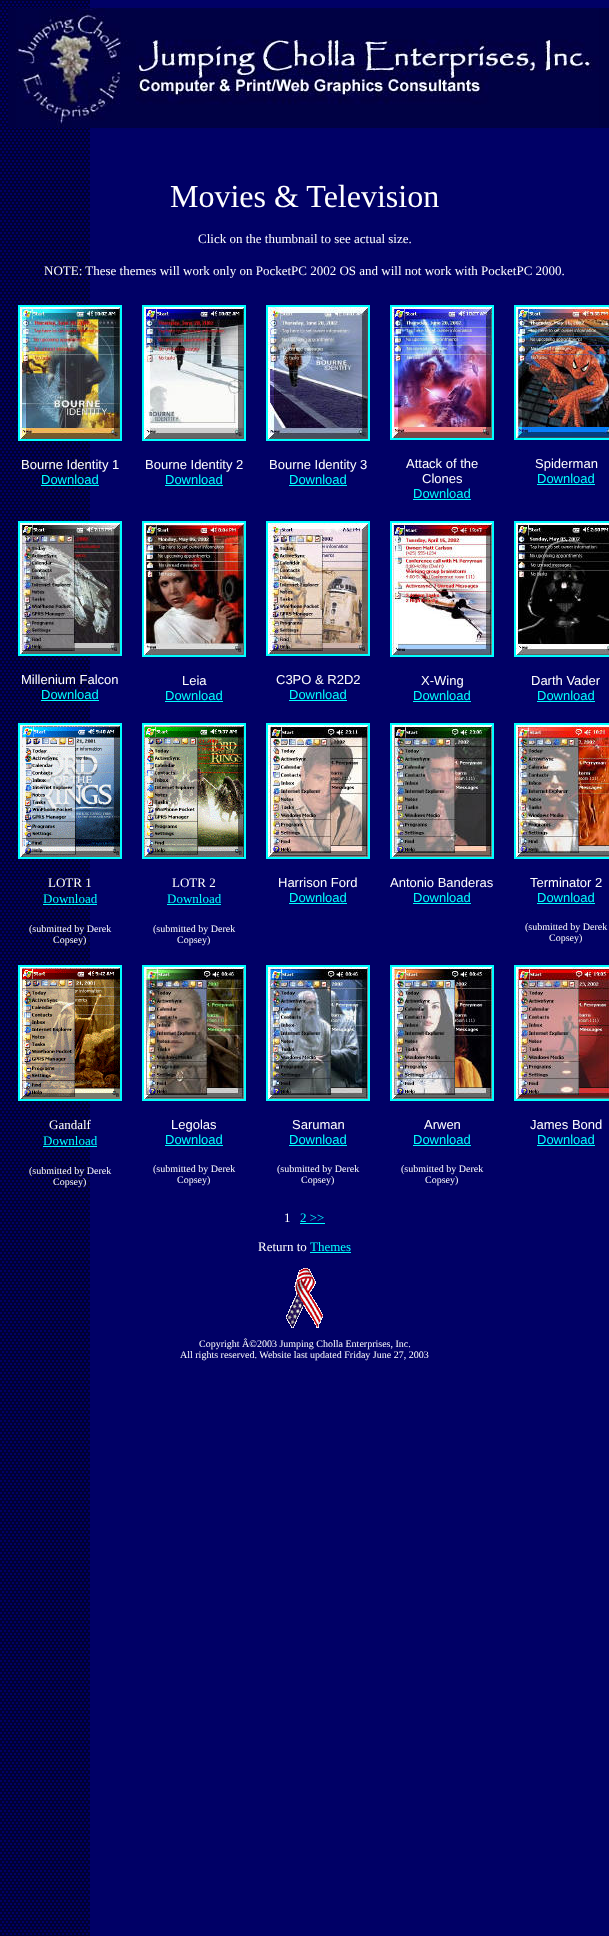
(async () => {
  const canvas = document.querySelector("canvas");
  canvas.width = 609;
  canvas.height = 1936;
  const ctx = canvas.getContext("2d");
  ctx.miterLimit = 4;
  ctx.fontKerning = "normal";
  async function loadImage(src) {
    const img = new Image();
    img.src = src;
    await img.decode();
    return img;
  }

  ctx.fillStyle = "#000066";
  ctx.fillRect(0, 0, 609, 1936);
  ctx.drawImage(await loadImage("img/1.png"), 0, 0, 90, 1936);
  ctx.fillStyle = "#000042";
  ctx.fillRect(8, 8, 601, 120);
  ctx.drawImage(await loadImage("img/2.png"), 16, 8, 583, 120);
  ctx.strokeStyle = "#00ffff";
  ctx.lineWidth = 2;
  ctx.strokeRect(19, 306, 102, 134);
  ctx.drawImage(await loadImage("img/3.png"), 20, 307, 100, 132);
  ctx.fillStyle = "#00ffff";
  ctx.fillRect(41, 485, 58, 1);
  ctx.strokeRect(143, 306, 102, 134);
  ctx.drawImage(await loadImage("img/4.png"), 144, 307, 100, 132);
  ctx.fillRect(165, 485, 58, 1);
  ctx.strokeRect(267, 306, 102, 134);
  ctx.drawImage(await loadImage("img/5.png"), 268, 307, 100, 132);
  ctx.fillRect(289, 485, 58, 1);
  ctx.strokeRect(391, 306, 102, 133);
  ctx.drawImage(await loadImage("img/6.png"), 392, 307, 100, 131);
  ctx.fillRect(413, 499, 58, 1);
  ctx.strokeRect(515, 306, 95, 133);
  ctx.drawImage(await loadImage("img/7.png"), 516, 307, 93, 131);
  ctx.fillRect(537, 484, 58, 1);
  ctx.strokeRect(19, 522, 102, 133);
  ctx.drawImage(await loadImage("img/8.png"), 20, 523, 100, 131);
  ctx.fillRect(41, 700, 58, 1);
  ctx.strokeRect(143, 522, 102, 134);
  ctx.drawImage(await loadImage("img/9.png"), 144, 523, 100, 132);
  ctx.fillRect(165, 701, 58, 1);
  ctx.strokeRect(267, 522, 102, 133);
  ctx.drawImage(await loadImage("img/10.png"), 268, 523, 100, 131);
  ctx.fillRect(289, 700, 58, 1);
  ctx.strokeRect(391, 522, 102, 134);
  ctx.drawImage(await loadImage("img/11.png"), 392, 523, 100, 132);
  ctx.fillRect(413, 701, 58, 1);
  ctx.strokeRect(515, 522, 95, 134);
  ctx.drawImage(await loadImage("img/12.png"), 516, 523, 93, 132);
  ctx.fillRect(537, 701, 58, 1);
  ctx.strokeRect(19, 724, 102, 134);
  ctx.drawImage(await loadImage("img/13.png"), 20, 725, 100, 132);
  ctx.fillRect(43, 904, 54, 1);
  ctx.strokeRect(143, 724, 102, 134);
  ctx.drawImage(await loadImage("img/14.png"), 144, 725, 100, 132);
  ctx.fillRect(167, 904, 54, 1);
  ctx.strokeRect(267, 724, 102, 134);
  ctx.drawImage(await loadImage("img/15.png"), 268, 725, 100, 132);
  ctx.fillRect(289, 903, 58, 1);
  ctx.strokeRect(391, 724, 102, 134);
  ctx.drawImage(await loadImage("img/16.png"), 392, 725, 100, 132);
  ctx.fillRect(413, 903, 58, 1);
  ctx.strokeRect(515, 724, 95, 134);
  ctx.drawImage(await loadImage("img/17.png"), 516, 725, 93, 132);
  ctx.fillRect(537, 903, 58, 1);
  ctx.strokeRect(19, 966, 102, 134);
  ctx.drawImage(await loadImage("img/18.png"), 20, 967, 100, 132);
  ctx.fillRect(43, 1146, 54, 1);
  ctx.strokeRect(143, 966, 102, 134);
  ctx.drawImage(await loadImage("img/19.png"), 144, 967, 100, 132);
  ctx.fillRect(165, 1145, 58, 1);
  ctx.strokeRect(267, 966, 102, 134);
  ctx.drawImage(await loadImage("img/20.png"), 268, 967, 100, 132);
  ctx.fillRect(289, 1145, 58, 1);
  ctx.strokeRect(391, 966, 102, 134);
  ctx.drawImage(await loadImage("img/21.png"), 392, 967, 100, 132);
  ctx.fillRect(413, 1145, 58, 1);
  ctx.strokeRect(515, 966, 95, 134);
  ctx.drawImage(await loadImage("img/22.png"), 516, 967, 93, 132);
  for (const [x, y, w, h, color] of [
    [537, 1145, 58, 1, "#00ffff"],
    [300, 1223, 25, 1, "#00ffff"],
    [310, 1252, 41, 1, "#00ffff"],
  ]) {
    ctx.fillStyle = color;
    ctx.fillRect(x, y, w, h);
  }
  ctx.drawImage(await loadImage("img/23.png"), 286, 1268, 37, 60);
  ctx.font = "32px Liberation Serif";
  ctx.fillStyle = "#ffffff";
  ctx.fillText("Movies & Television", 170, 207);
  ctx.font = "13px Liberation Serif";
  ctx.fillText("Click on the thumbnail to see actual size.", 198, 243);
  ctx.fillText("NOTE: These themes will work only on PocketPC 2002 OS and will not work with PocketPC 2000.", 44, 275);
  ctx.font = "13px Liberation Sans";
  ctx.fillText("Bourne Identity 1", 21, 469);
  ctx.fillStyle = "#00ffff";
  ctx.fillText("Download", 41, 484);
  ctx.fillStyle = "#ffffff";
  ctx.fillText("Bourne Identity 2", 145, 469);
  ctx.fillStyle = "#00ffff";
  ctx.fillText("Download", 165, 484);
  ctx.fillStyle = "#ffffff";
  ctx.fillText("Bourne Identity 3", 269, 469);
  ctx.fillStyle = "#00ffff";
  ctx.fillText("Download", 289, 484);
  ctx.fillStyle = "#ffffff";
  ctx.fillText("Attack of the", 406, 468);
  ctx.fillText("Clones", 422, 483);
  ctx.fillStyle = "#00ffff";
  ctx.fillText("Download", 413, 498);
  ctx.fillStyle = "#ffffff";
  ctx.fillText("Spiderman", 535, 468);
  ctx.fillStyle = "#00ffff";
  ctx.fillText("Download", 537, 483);
  ctx.fillStyle = "#ffffff";
  ctx.fillText("Millenium Falcon", 21, 684);
  ctx.fillStyle = "#00ffff";
  ctx.fillText("Download", 41, 699);
  ctx.fillStyle = "#ffffff";
  ctx.fillText("Leia", 182, 685);
  ctx.fillStyle = "#00ffff";
  ctx.fillText("Download", 165, 700);
  ctx.fillStyle = "#ffffff";
  ctx.fillText("C3PO & R2D2", 276, 684);
  ctx.fillStyle = "#00ffff";
  ctx.fillText("Download", 289, 699);
  ctx.fillStyle = "#ffffff";
  ctx.fillText("X-Wing", 421, 685);
  ctx.fillStyle = "#00ffff";
  ctx.fillText("Download", 413, 700);
  ctx.fillStyle = "#ffffff";
  ctx.fillText("Darth Vader", 531, 685);
  ctx.fillStyle = "#00ffff";
  ctx.fillText("Download", 537, 700);
  ctx.font = "13px Liberation Serif";
  ctx.fillStyle = "#ffffff";
  ctx.fillText("LOTR 1", 48, 887);
  ctx.fillStyle = "#00ffff";
  ctx.fillText("Download", 43, 903);
  ctx.font = "10px Liberation Serif";
  ctx.fillStyle = "#ffffff";
  ctx.fillText("(submitted by Derek", 29, 932);
  ctx.fillText("Copsey)", 53, 943);
  ctx.font = "13px Liberation Serif";
  ctx.fillText("LOTR 2", 172, 887);
  ctx.fillStyle = "#00ffff";
  ctx.fillText("Download", 167, 903);
  ctx.font = "10px Liberation Serif";
  ctx.fillStyle = "#ffffff";
  ctx.fillText("(submitted by Derek", 153, 932);
  ctx.fillText("Copsey)", 177, 943);
  ctx.font = "13px Liberation Sans";
  ctx.fillText("Harrison Ford", 278, 887);
  ctx.fillStyle = "#00ffff";
  ctx.fillText("Download", 289, 902);
  ctx.fillStyle = "#ffffff";
  ctx.fillText("Antonio Banderas", 390, 887);
  ctx.fillStyle = "#00ffff";
  ctx.fillText("Download", 413, 902);
  ctx.fillStyle = "#ffffff";
  ctx.fillText("Terminator 2", 530, 887);
  ctx.fillStyle = "#00ffff";
  ctx.fillText("Download", 537, 902);
  ctx.font = "10px Liberation Serif";
  ctx.fillStyle = "#ffffff";
  ctx.fillText("(submitted by Derek", 525, 930);
  ctx.fillText("Copsey)", 549, 941);
  ctx.font = "13px Liberation Serif";
  ctx.fillText("Gandalf", 49, 1129);
  ctx.fillStyle = "#00ffff";
  ctx.fillText("Download", 43, 1145);
  ctx.font = "10px Liberation Serif";
  ctx.fillStyle = "#ffffff";
  ctx.fillText("(submitted by Derek", 29, 1174);
  ctx.fillText("Copsey)", 53, 1185);
  ctx.font = "13px Liberation Sans";
  ctx.fillText("Legolas", 171, 1129);
  ctx.fillStyle = "#00ffff";
  ctx.fillText("Download", 165, 1144);
  ctx.font = "10px Liberation Serif";
  ctx.fillStyle = "#ffffff";
  ctx.fillText("(submitted by Derek", 153, 1172);
  ctx.fillText("Copsey)", 177, 1183);
  ctx.font = "13px Liberation Sans";
  ctx.fillText("Saruman", 292, 1129);
  ctx.fillStyle = "#00ffff";
  ctx.fillText("Download", 289, 1144);
  ctx.font = "10px Liberation Serif";
  ctx.fillStyle = "#ffffff";
  ctx.fillText("(submitted by Derek", 277, 1172);
  ctx.fillText("Copsey)", 301, 1183);
  ctx.font = "13px Liberation Sans";
  ctx.fillText("Arwen", 424, 1129);
  ctx.fillStyle = "#00ffff";
  ctx.fillText("Download", 413, 1144);
  ctx.font = "10px Liberation Serif";
  ctx.fillStyle = "#ffffff";
  ctx.fillText("(submitted by Derek", 401, 1172);
  ctx.fillText("Copsey)", 425, 1183);
  ctx.font = "13px Liberation Sans";
  ctx.fillText("James Bond", 530, 1129);
  ctx.fillStyle = "#00ffff";
  ctx.fillText("Download", 537, 1144);
  ctx.font = "13px Liberation Serif";
  ctx.fillStyle = "#ffffff";
  ctx.fillText("1", 284, 1222);
  ctx.fillStyle = "#00ffff";
  ctx.fillText("2 >>", 300, 1222);
  ctx.fillStyle = "#ffffff";
  ctx.fillText("Return to", 258, 1251);
  ctx.fillStyle = "#00ffff";
  ctx.fillText("Themes", 310, 1251);
  ctx.font = "10px Liberation Serif";
  ctx.fillStyle = "#ffffff";
  ctx.fillText("Copyright Â©2003 Jumping Cholla Enterprises, Inc.", 199, 1347);
  ctx.fillText("All rights reserved. Website last updated Friday June 27, 2003", 180, 1358);
})();
